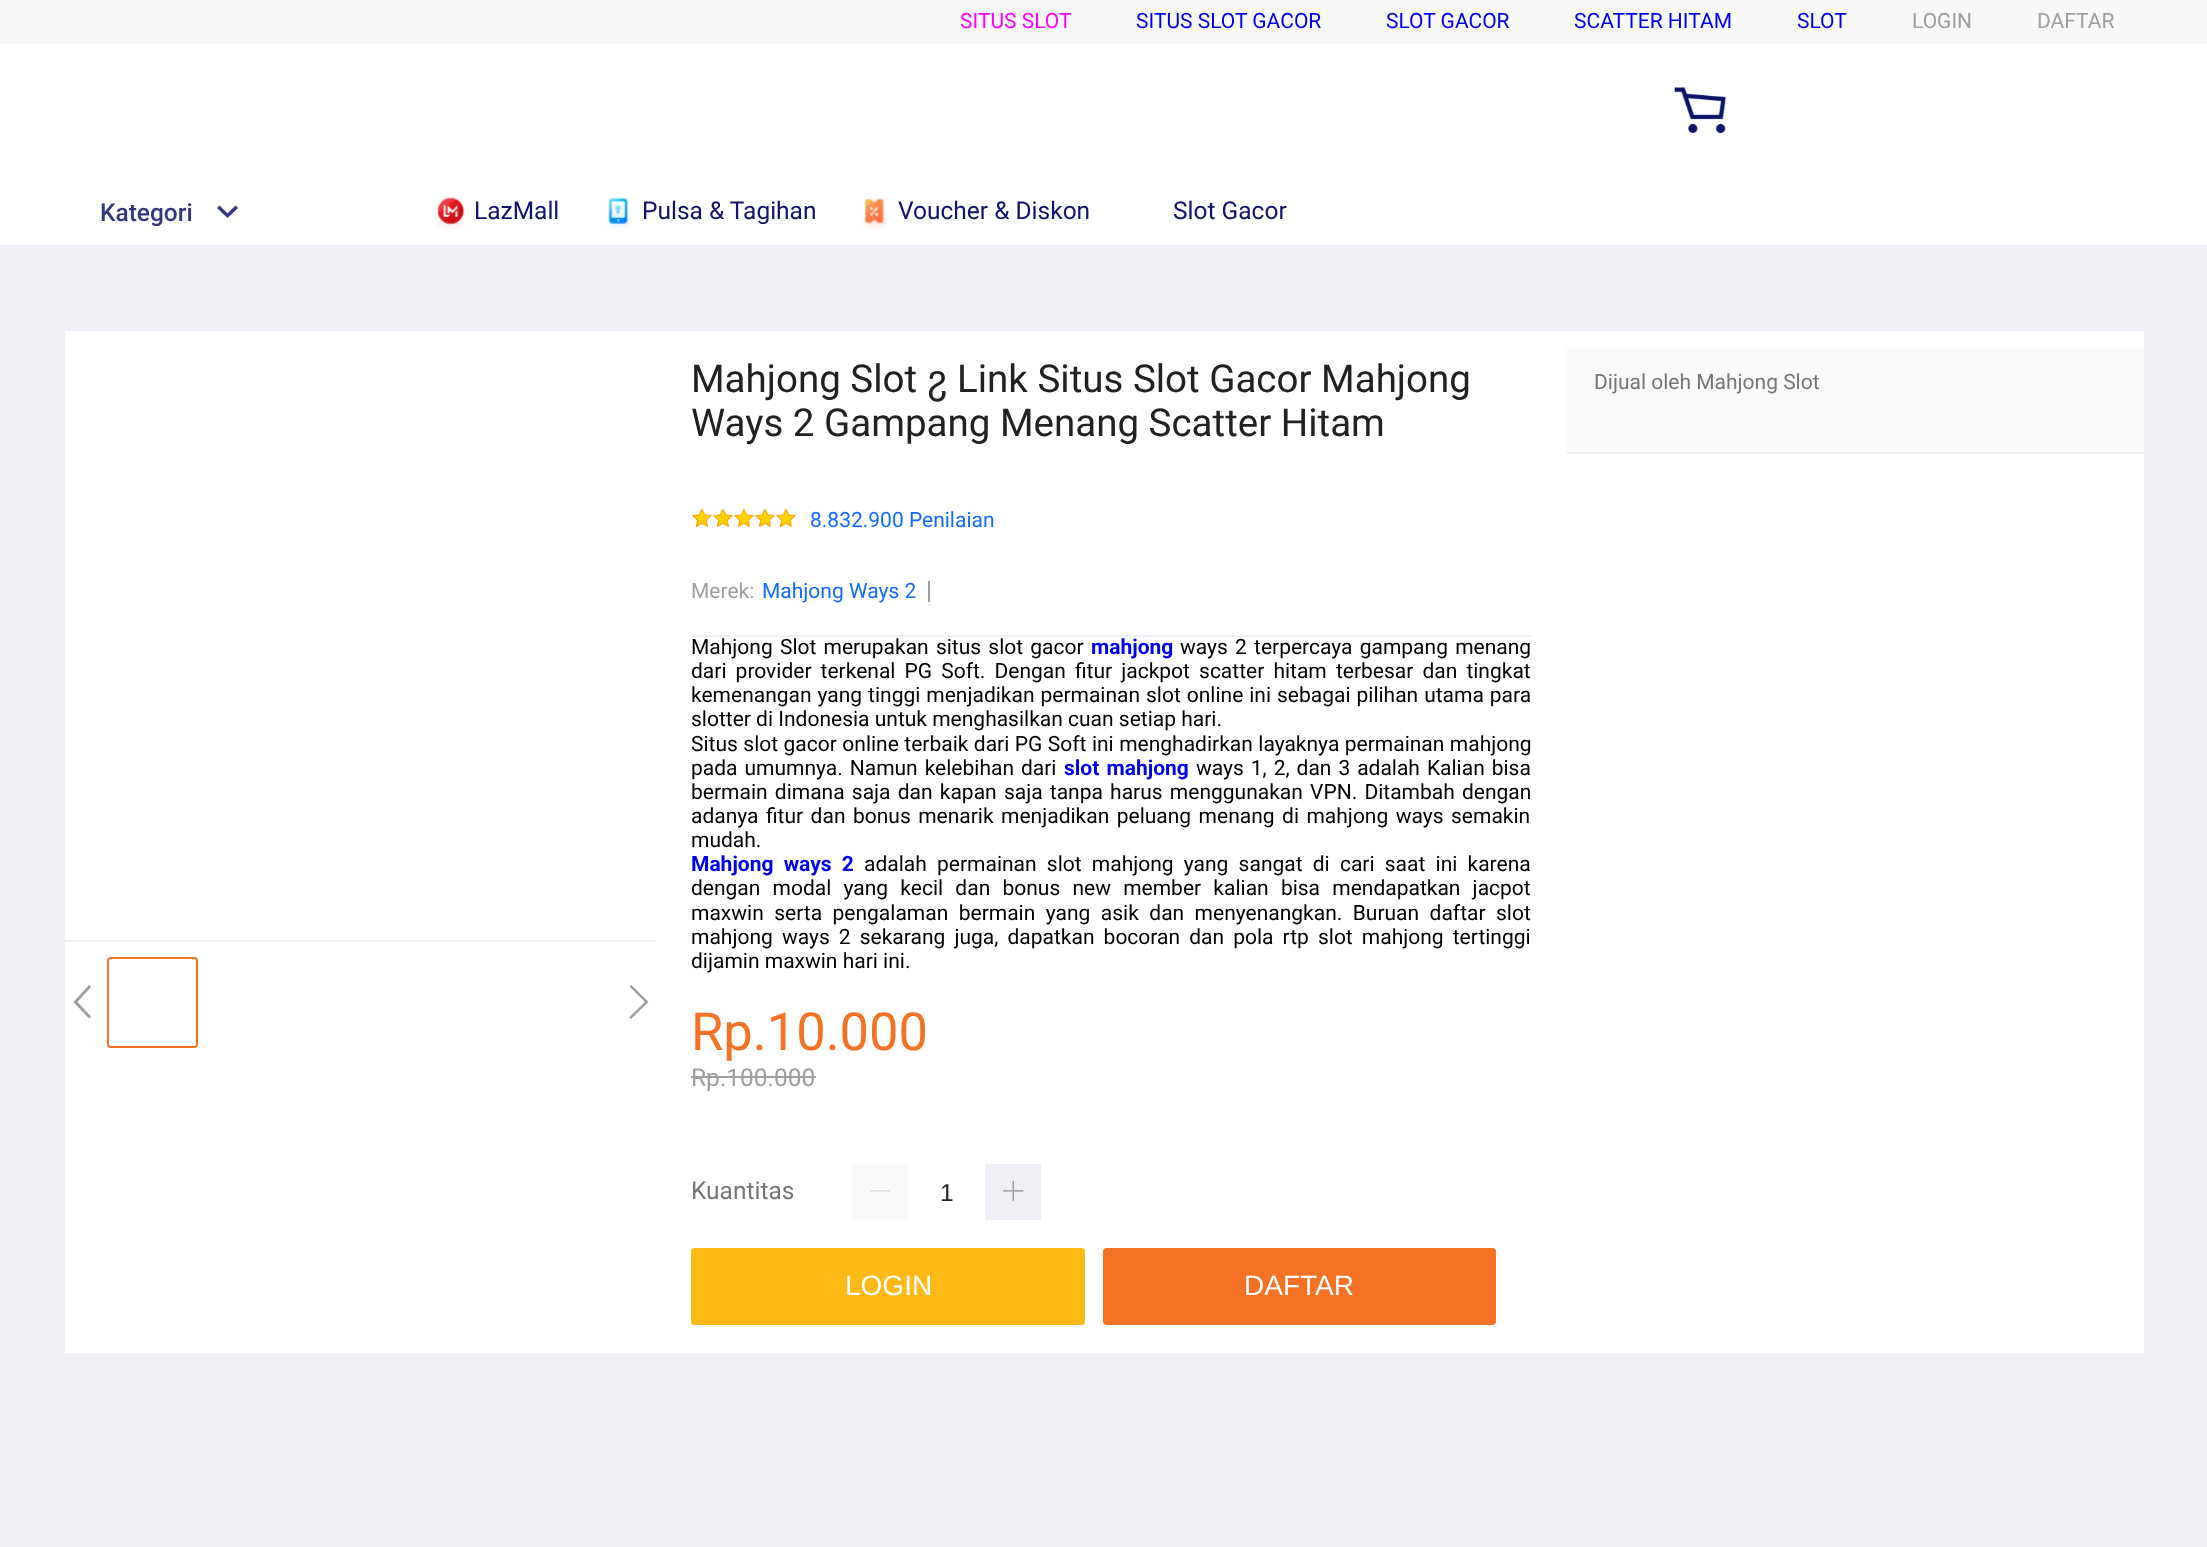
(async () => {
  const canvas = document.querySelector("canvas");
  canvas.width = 2207;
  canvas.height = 1547;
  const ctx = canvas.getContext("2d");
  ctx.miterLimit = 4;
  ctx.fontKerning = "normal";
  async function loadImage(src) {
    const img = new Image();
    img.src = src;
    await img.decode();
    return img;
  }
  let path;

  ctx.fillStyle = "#eff0f5";
  ctx.fillRect(0, 0, 2207, 1547);
  ctx.fillStyle = "#ffffff";
  ctx.fillRect(0, 44, 2207, 201);
  ctx.fillStyle = "#f8f8f8";
  ctx.fillRect(0, 0, 2207, 44);
  ctx.drawImage(await loadImage("img/1.png"), 1674, 87, 52, 46);
  ctx.fillStyle = "#333683";
  path = new Path2D("M235.5 205.5L238 208L227.5 218L217 208L219.5 205.5L227.5 213.5Z");
  ctx.fill(path);
  ctx.drawImage(await loadImage("img/2.png"), 435, 197, 30, 32);
  ctx.drawImage(await loadImage("img/3.png"), 606, 197, 26, 32);
  ctx.drawImage(await loadImage("img/4.png"), 861, 198, 27, 31);
  ctx.fillStyle = "#ffffff";
  ctx.fillRect(65, 331, 2079, 1022);
  ctx.fillStyle = "#eff0f5";
  ctx.fillRect(65, 940, 591, 2);
  ctx.fillStyle = "#9e9e9e";
  path = new Path2D("M91 1016.5L77.5 1002L91 987L89 985L73.5 1002L89 1018.5Z");
  ctx.fill(path);
  ctx.beginPath();
  ctx.roundRect(108, 958, 89, 89, 3);
  ctx.strokeStyle = "#f57224";
  ctx.lineWidth = 2;
  ctx.stroke();
  path = new Path2D("M631 1019L629 1017.5L645 1002L629.5 986.5L631.5 985L648.5 1002Z");
  ctx.fill(path);
  ctx.drawImage(await loadImage("img/5.png"), 692, 508, 21, 19);
  ctx.drawImage(await loadImage("img/6.png"), 713, 508, 21, 19);
  ctx.drawImage(await loadImage("img/6.png"), 734, 508, 21, 19);
  ctx.drawImage(await loadImage("img/7.png"), 755, 508, 21, 19);
  ctx.drawImage(await loadImage("img/5.png"), 776, 508, 21, 19);
  for (const [x, y, w, h, color] of [
    [691, 635, 840, 2, "#eff0f5"],
    [928, 581, 2, 21, "#9e9e9e"],
    [691, 1076, 125, 2, "#9e9e9e"],
    [852, 1164, 56, 56, "#fafafa"],
  ]) {
    ctx.fillStyle = color;
    ctx.fillRect(x, y, w, h);
  }
  ctx.drawImage(await loadImage("img/8.png"), 870, 1190, 21, 2);
  ctx.fillStyle = "#eff0f5";
  ctx.fillRect(985, 1164, 56, 56);
  ctx.drawImage(await loadImage("img/9.png"), 1003, 1180, 21, 21);
  ctx.fillStyle = "#ffb916";
  ctx.beginPath();
  ctx.roundRect(691, 1248, 394, 77, 4);
  ctx.fill();
  ctx.fillStyle = "#f57224";
  ctx.beginPath();
  ctx.roundRect(1103, 1248, 393, 77, 4);
  ctx.fill();
  ctx.fillStyle = "#fafafa";
  ctx.fillRect(1566, 348, 578, 104);
  ctx.fillStyle = "#eff0f5";
  ctx.fillRect(1566, 452, 578, 2);
  ctx.font = "21px Roboto";
  ctx.fillStyle = "#ff00ff";
  ctx.fillText("SITUS SLOT", 960, 28);
  ctx.fillStyle = "#0000ee";
  for (const [text, x, y] of [
    ["SITUS SLOT GACOR", 1136, 28],
    ["SLOT GACOR", 1386, 28],
    ["SCATTER HITAM", 1574, 28],
    ["SLOT", 1797, 28],
  ]) {
    ctx.fillText(text, x, y);
  }
  ctx.fillStyle = "#9e9e9e";
  ctx.fillText("LOGIN", 1912, 28);
  ctx.fillText("DAFTAR", 2037, 28);
  ctx.font = "500 24.5px Roboto";
  ctx.fillStyle = "#333683";
  ctx.fillText("Kategori", 100, 221);
  ctx.font = "24.5px Roboto";
  ctx.fillStyle = "#0f136d";
  for (const [text, x, y] of [
    ["LazMall", 474, 219],
    ["Pulsa & Tagihan", 642, 219],
    ["Voucher & Diskon", 898, 219],
    ["Slot Gacor", 1173, 219],
  ]) {
    ctx.fillText(text, x, y);
  }
  ctx.font = "38.5px Roboto";
  ctx.fillStyle = "#212121";
  ctx.fillText("Mahjong Slot", 691, 392);
  ctx.font = "38.5px Noto Sans Georgian";
  ctx.fillText("ⴧ", 927, 392);
  ctx.font = "38.5px Roboto";
  ctx.fillText("Link Situs Slot Gacor Mahjong", 957, 392);
  ctx.fillText("Ways 2 Gampang Menang Scatter Hitam", 691, 436);
  ctx.font = "21px Roboto";
  ctx.fillStyle = "#136cff";
  ctx.fillText("8.832.900 Penilaian", 810, 527);
  ctx.fillStyle = "#9e9e9e";
  ctx.fillText("Merek:", 691, 598);
  ctx.fillStyle = "#136cff";
  ctx.fillText("Mahjong Ways 2", 762, 598);
  ctx.wordSpacing = "2px";
  ctx.fillStyle = "#000000";
  ctx.fillText("Mahjong Slot merupakan situs slot gacor", 691, 654);
  ctx.wordSpacing = "0px";
  ctx.font = "bold 21px Roboto";
  ctx.fillStyle = "#0000ee";
  ctx.fillText("mahjong", 1091, 654);
  ctx.wordSpacing = "2px";
  ctx.font = "21px Roboto";
  ctx.fillStyle = "#000000";
  ctx.fillText("ways 2 terpercaya gampang menang", 1180, 654);
  ctx.wordSpacing = "3.9px";
  ctx.fillText("dari provider terkenal PG Soft. Dengan fitur jackpot scatter hitam terbesar dan tingkat", 691, 678);
  ctx.wordSpacing = "0.75px";
  ctx.fillText("kemenangan yang tinggi menjadikan permainan slot online ini sebagai pilihan utama para", 691, 702);
  ctx.wordSpacing = "0px";
  ctx.fillText("slotter di Indonesia untuk menghasilkan cuan setiap hari.", 691, 726);
  ctx.wordSpacing = "0.25px";
  ctx.fillText("Situs slot gacor online terbaik dari PG Soft ini menghadirkan layaknya permainan mahjong", 691, 751);
  ctx.wordSpacing = "1.75px";
  ctx.fillText("pada umumnya. Namun kelebihan dari", 691, 775);
  ctx.wordSpacing = "2px";
  ctx.font = "bold 21px Roboto";
  ctx.fillStyle = "#0000ee";
  ctx.fillText("slot mahjong", 1064, 775);
  ctx.wordSpacing = "1.75px";
  ctx.font = "21px Roboto";
  ctx.fillStyle = "#000000";
  ctx.fillText("ways 1, 2, dan 3 adalah Kalian bisa", 1196, 775);
  ctx.wordSpacing = "2px";
  ctx.fillText("bermain dimana saja dan kapan saja tanpa harus menggunakan VPN. Ditambah dengan", 691, 799);
  ctx.wordSpacing = "2.25px";
  ctx.fillText("adanya fitur dan bonus menarik menjadikan peluang menang di mahjong ways semakin", 691, 823);
  ctx.wordSpacing = "0px";
  ctx.fillText("mudah.", 691, 847);
  ctx.wordSpacing = "5px";
  ctx.font = "bold 21px Roboto";
  ctx.fillStyle = "#0000ee";
  ctx.fillText("Mahjong ways 2", 691, 871);
  ctx.font = "21px Roboto";
  ctx.fillStyle = "#000000";
  ctx.fillText("adalah permainan slot mahjong yang sangat di cari saat ini karena", 864, 871);
  ctx.wordSpacing = "7px";
  ctx.fillText("dengan modal yang kecil dan bonus new member kalian bisa mendapatkan jacpot", 691, 895);
  ctx.wordSpacing = "5.25px";
  ctx.fillText("maxwin serta pengalaman bermain yang asik dan menyenangkan. Buruan daftar slot", 691, 920);
  ctx.wordSpacing = "3.9px";
  ctx.fillText("mahjong ways 2 sekarang juga, dapatkan bocoran dan pola rtp slot mahjong tertinggi", 691, 944);
  ctx.wordSpacing = "0px";
  ctx.fillText("dijamin maxwin hari ini.", 691, 968);
  ctx.font = "52.5px Roboto";
  ctx.fillStyle = "#f57224";
  ctx.fillText("Rp.10.000", 691, 1050);
  ctx.font = "24.5px Roboto";
  ctx.fillStyle = "#9e9e9e";
  ctx.fillText("Rp.100.000", 691, 1086);
  ctx.fillStyle = "#757575";
  ctx.fillText("Kuantitas", 691, 1199);
  ctx.font = "24.5px Liberation Sans";
  ctx.fillStyle = "#212121";
  ctx.fillText("1", 940, 1201);
  ctx.font = "28px Liberation Sans";
  ctx.fillStyle = "#ffffff";
  ctx.fillText("LOGIN", 845, 1295);
  ctx.fillText("DAFTAR", 1244, 1295);
  ctx.font = "21px Roboto";
  ctx.fillStyle = "#757575";
  ctx.fillText("Dijual oleh Mahjong Slot", 1594, 389);
})();
